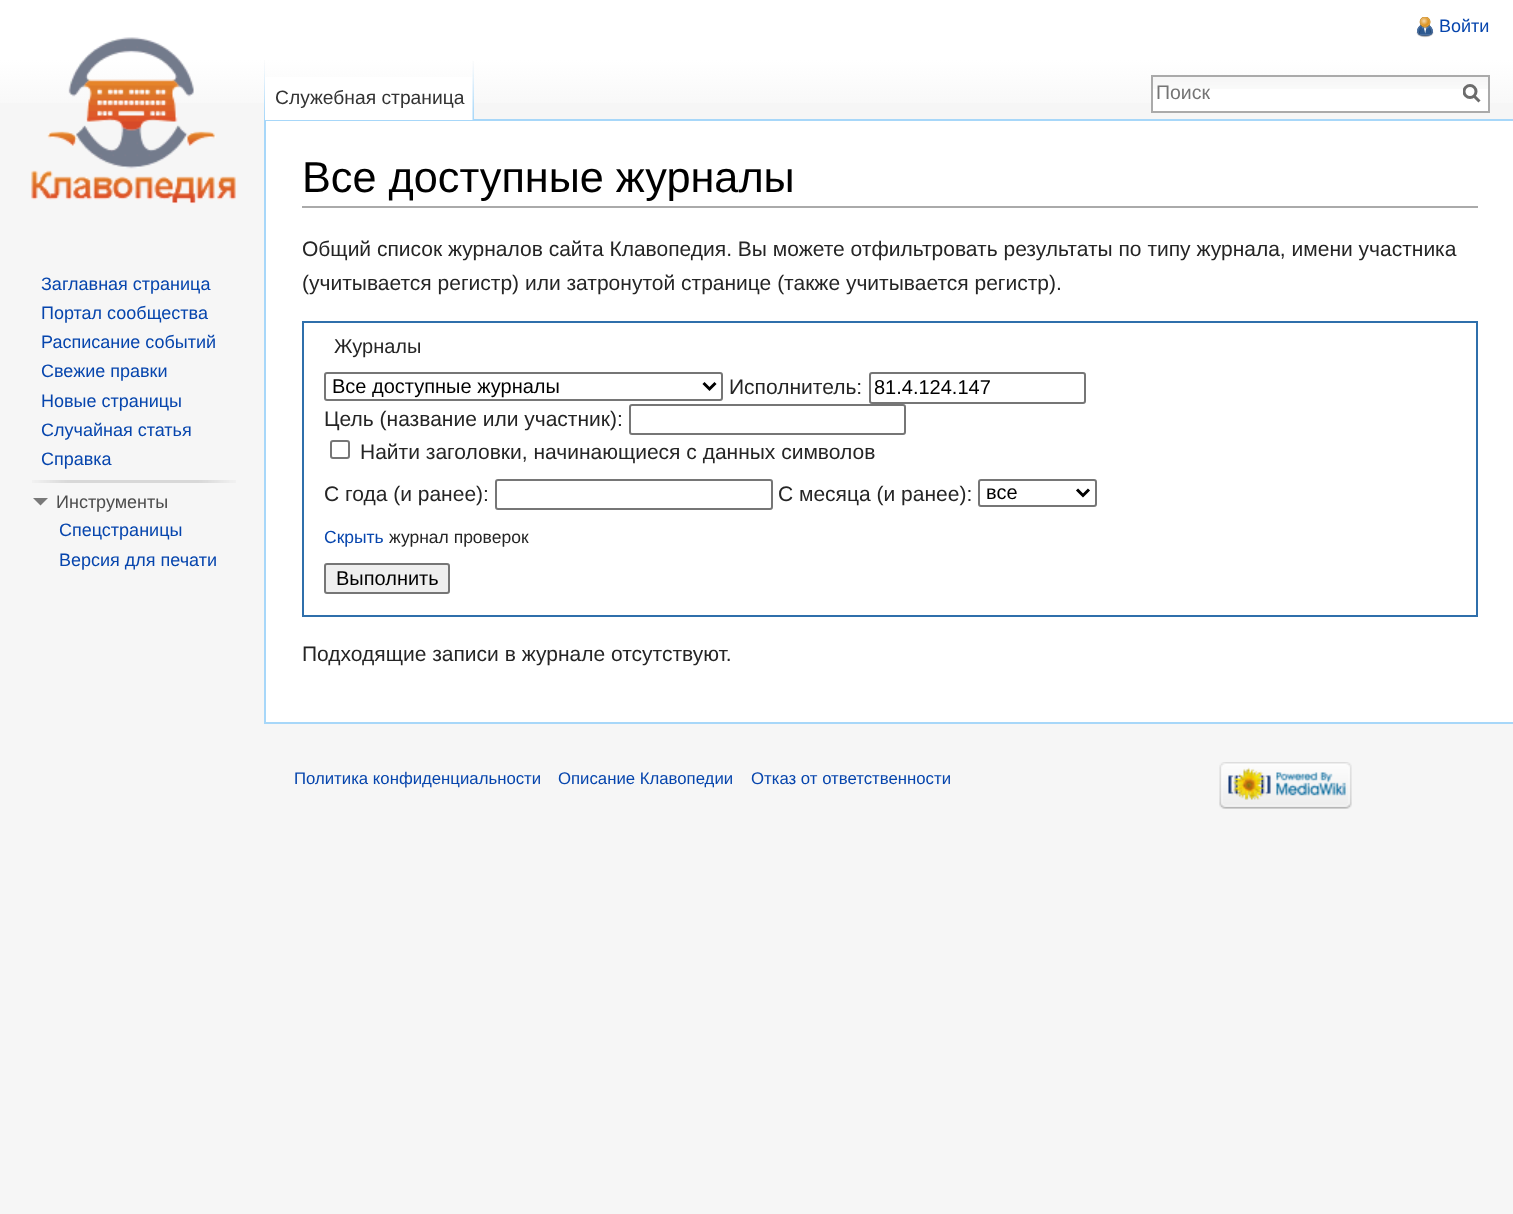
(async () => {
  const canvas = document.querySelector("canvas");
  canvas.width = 1513;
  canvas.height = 1214;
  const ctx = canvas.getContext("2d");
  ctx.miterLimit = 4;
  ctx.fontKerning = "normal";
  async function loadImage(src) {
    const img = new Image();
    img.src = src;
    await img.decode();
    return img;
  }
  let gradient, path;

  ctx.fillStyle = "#f6f6f6";
  ctx.fillRect(0, 0, 1513, 1214);
  gradient = ctx.createLinearGradient(757, 0, 757, 120);
  gradient.addColorStop(0.5, "#ffffff");
  gradient.addColorStop(1, "#f6f6f6");
  ctx.fillStyle = gradient;
  ctx.fillRect(0, 0, 1513, 103);
  ctx.drawImage(await loadImage("img/1.png"), 1416, 17, 18, 21);
  ctx.drawImage(await loadImage("img/2.png"), 264, 60, 1, 59);
  for (const [x, y, w, h, color] of [
    [264, 119, 1249, 2, "#a7d7f9"],
    [264, 722, 1249, 2, "#a7d7f9"],
    [264, 119, 2, 604, "#a7d7f9"],
    [265, 77, 209, 43, "#ffffff"],
  ]) {
    ctx.fillStyle = color;
    ctx.fillRect(x, y, w, h);
  }
  ctx.drawImage(await loadImage("img/3.png"), 472, 61, 2, 59);
  ctx.fillRect(1153, 89, 335, 22);
  ctx.drawImage(await loadImage("img/4.png"), 1153, 77, 335, 12);
  ctx.strokeStyle = "#aaaaaa";
  ctx.lineWidth = 2;
  ctx.strokeRect(1152, 76, 337, 36);
  path = new Path2D("M1479.5 101.5L1473.5 95.5");
  ctx.strokeStyle = "#6c6c6c";
  ctx.lineWidth = 3;
  ctx.stroke(path);
  ctx.save();
  ctx.beginPath();
  ctx.rect(1463, 84, 18, 20);
  ctx.clip();
  ctx.beginPath();
  ctx.arc(1470, 91.5, 6, 0, Math.PI * 2);
  ctx.stroke();
  ctx.restore();
  ctx.drawImage(await loadImage("img/5.png"), 31, 37, 205, 167);
  ctx.drawImage(await loadImage("img/6.png"), 32, 480, 204, 3);
  ctx.fillStyle = "#797979";
  path = new Path2D("M48 498L40.5 505.5L33 498Z");
  ctx.fill(path);
  ctx.fillStyle = "#ffffff";
  ctx.fillRect(266, 121, 1247, 601);
  ctx.fillStyle = "#aaaaaa";
  ctx.fillRect(302, 206, 1176, 2);
  ctx.strokeStyle = "#2f6fab";
  ctx.lineWidth = 2;
  ctx.strokeRect(303, 322, 1174, 294);
  ctx.beginPath();
  ctx.roundRect(325, 373, 397, 27, 2);
  ctx.strokeStyle = "#767676";
  ctx.stroke();
  path = new Path2D("M703.5 383L709.5 389L715.5 383");
  ctx.strokeStyle = "#000000";
  ctx.lineWidth = 3;
  ctx.stroke(path);
  ctx.beginPath();
  ctx.roundRect(870, 373, 215, 30, 2);
  ctx.strokeStyle = "#767676";
  ctx.lineWidth = 2;
  ctx.stroke();
  ctx.beginPath();
  ctx.roundRect(630, 405, 275, 29, 2);
  ctx.stroke();
  ctx.beginPath();
  ctx.roundRect(331, 441, 18, 17, 2);
  ctx.stroke();
  ctx.beginPath();
  ctx.roundRect(496, 480, 276, 29, 2);
  ctx.stroke();
  ctx.beginPath();
  ctx.roundRect(979, 480, 117, 26, 2);
  ctx.stroke();
  path = new Path2D("M1077 489.5L1083 495.5L1089 489.5");
  ctx.strokeStyle = "#000000";
  ctx.lineWidth = 3;
  ctx.stroke(path);
  ctx.fillStyle = "#efefef";
  ctx.beginPath();
  ctx.roundRect(325, 564, 124, 29, 2);
  ctx.fill();
  ctx.strokeStyle = "#767676";
  ctx.lineWidth = 2;
  ctx.stroke();
  ctx.drawImage(await loadImage("img/7.png"), 1219, 762, 133, 47);
  ctx.font = "18px Liberation Sans";
  ctx.fillStyle = "#0645ad";
  ctx.fillText("Войти", 1439, 32);
  ctx.font = "19.25px Liberation Sans";
  ctx.fillStyle = "#333333";
  ctx.fillText("Служебная страница", 275, 104);
  ctx.font = "19.5px Liberation Sans";
  ctx.fillStyle = "#757575";
  ctx.fillText("Поиск", 1156, 99);
  ctx.font = "18px Liberation Sans";
  ctx.fillStyle = "#0645ad";
  for (const [text, x, y] of [
    ["Заглавная страница", 41, 290],
    ["Портал сообщества", 41, 319],
    ["Расписание событий", 41, 348],
    ["Свежие правки", 41, 377],
    ["Новые страницы", 41, 407],
    ["Случайная статья", 41, 436],
    ["Справка", 41, 465],
  ]) {
    ctx.fillText(text, x, y);
  }
  ctx.fillStyle = "#4d4d4d";
  ctx.fillText("Инструменты", 56, 508);
  ctx.fillStyle = "#0645ad";
  ctx.fillText("Спецстраницы", 59, 536);
  ctx.fillText("Версия для печати", 59, 566);
  ctx.font = "43.25px Liberation Sans";
  ctx.fillStyle = "#000000";
  ctx.fillText("Все доступные журналы", 302, 192);
  ctx.font = "21px Liberation Sans";
  ctx.fillStyle = "#252525";
  ctx.fillText("Общий список журналов сайта Клавопедия. Вы можете отфильтровать результаты по типу журнала, имени участника", 302, 256);
  ctx.fillText("(учитывается регистр) или затронутой странице (также учитывается регистр).", 302, 290);
  ctx.font = "20px Liberation Sans";
  ctx.fillText("Журналы", 334, 353);
  ctx.fillStyle = "#000000";
  ctx.fillText("Все доступные журналы", 332, 393);
  ctx.font = "21px Liberation Sans";
  ctx.fillStyle = "#252525";
  ctx.fillText("Исполнитель:", 729, 394);
  ctx.save();
  ctx.beginPath();
  ctx.rect(875, 377, 205, 22);
  ctx.clip();
  ctx.font = "20px Liberation Sans";
  ctx.fillStyle = "#000000";
  ctx.fillText("81.4.124.147", 874, 394);
  ctx.restore();
  for (const [text, x, y] of [
    ["Цель (название или участник):", 324, 426],
    ["Найти заголовки, начинающиеся с данных символов", 360, 459],
    ["С года (и ранее):", 324, 501],
    ["С месяца (и ранее):", 778, 501],
  ]) {
    ctx.fillText(text, x, y);
  }
  ctx.font = "20px Liberation Sans";
  ctx.fillStyle = "#000000";
  ctx.fillText("все", 986, 499);
  ctx.font = "17.5px Liberation Sans";
  ctx.fillStyle = "#0645ad";
  ctx.fillText("Скрыть", 324, 543);
  ctx.fillStyle = "#252525";
  ctx.fillText("журнал проверок", 389, 543);
  ctx.font = "20px Liberation Sans";
  ctx.fillStyle = "#000000";
  ctx.fillText("Выполнить", 336, 585);
  ctx.font = "21px Liberation Sans";
  ctx.fillStyle = "#252525";
  ctx.fillText("Подходящие записи в журнале отсутствуют.", 302, 661);
  ctx.font = "16.75px Liberation Sans";
  ctx.fillStyle = "#0645ad";
  for (const [text, x, y] of [
    ["Политика конфиденциальности", 294, 784],
    ["Описание Клавопедии", 558, 784],
    ["Отказ от ответственности", 751, 784],
  ]) {
    ctx.fillText(text, x, y);
  }
})();
